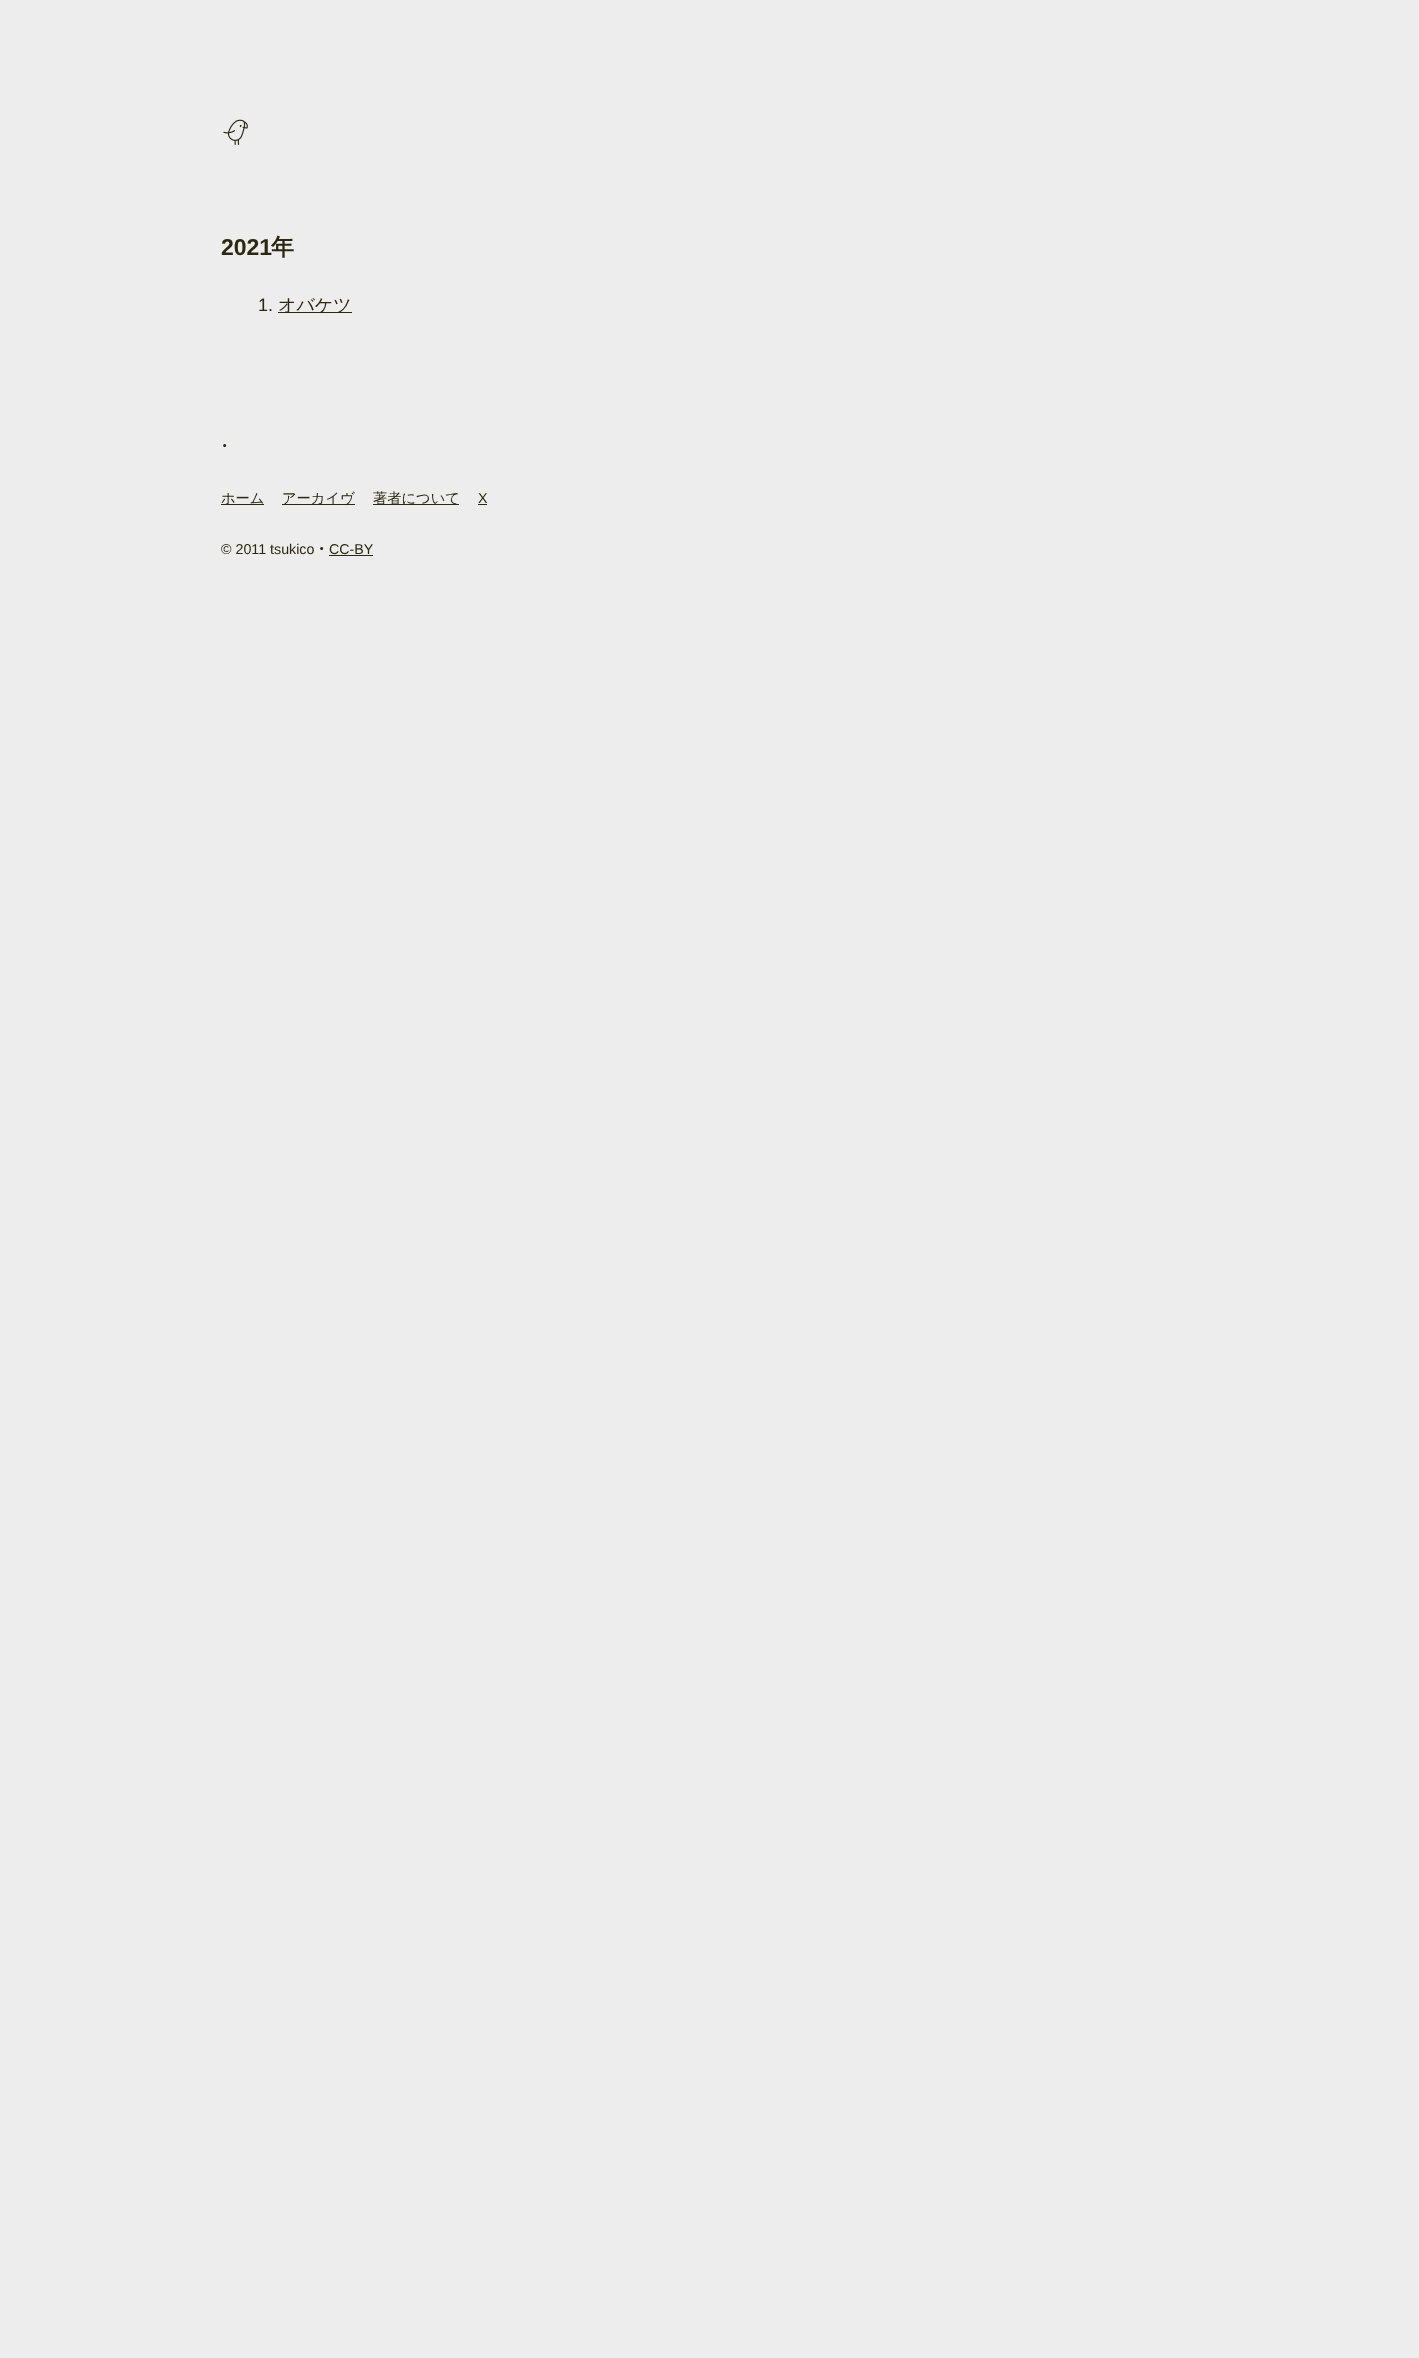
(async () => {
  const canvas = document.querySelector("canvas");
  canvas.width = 1419;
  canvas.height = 2358;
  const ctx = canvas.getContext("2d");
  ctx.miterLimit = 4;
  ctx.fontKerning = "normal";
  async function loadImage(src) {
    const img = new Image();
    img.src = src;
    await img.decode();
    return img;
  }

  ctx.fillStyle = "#ededed";
  ctx.fillRect(0, 0, 1419, 2358);
  ctx.drawImage(await loadImage("img/1.png"), 223, 119, 25, 26);
  for (const [x, y, w, h, color] of [
    [278, 312, 74, 1, "#2d2710"],
    [221, 504, 43, 1, "#2d2710"],
    [282, 504, 73, 1, "#2d2710"],
    [373, 504, 86, 1, "#2d2710"],
    [478, 504, 9, 1, "#2d2710"],
    [329, 555, 44, 1, "#2d2710"],
  ]) {
    ctx.fillStyle = color;
    ctx.fillRect(x, y, w, h);
  }
  ctx.font = "bold 23px Liberation Sans";
  ctx.fillText("2021", 221, 255);
  ctx.font = "bold 23px WenQuanYi Zen Hei";
  ctx.fillText("年", 271, 255);
  ctx.font = "18px Liberation Sans";
  ctx.fillText("1.", 258, 311);
  ctx.font = "500 18px WenQuanYi Zen Hei";
  ctx.fillText("オバケツ", 278, 311);
  ctx.font = "14.25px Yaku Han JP";
  ctx.fillText("・", 221, 451);
  ctx.font = "500 14.25px WenQuanYi Zen Hei";
  for (const [text, x, y] of [
    ["ホーム", 221, 503],
    ["アーカイヴ", 282, 503],
    ["著者について", 373, 503],
  ]) {
    ctx.fillText(text, x, y);
  }
  ctx.font = "14.25px Liberation Sans";
  ctx.fillText("X", 478, 503);
  ctx.fillText("© 2011 tsukico", 221, 554);
  ctx.font = "14.25px Yaku Han JP";
  ctx.fillText("・", 318, 554);
  ctx.font = "14.25px Liberation Sans";
  ctx.fillText("CC-BY", 329, 554);
})();
